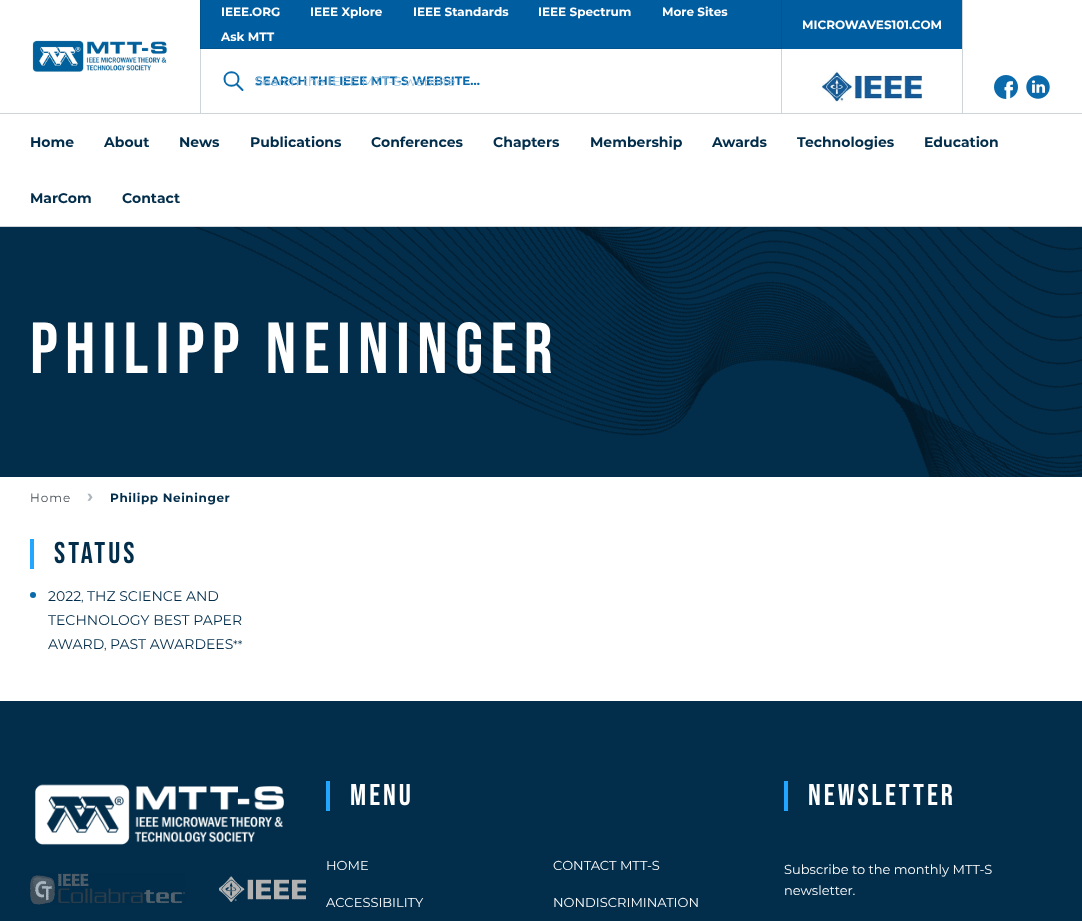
(async () => {
  const canvas = document.querySelector("canvas");
  canvas.width = 1082;
  canvas.height = 921;
  const ctx = canvas.getContext("2d");
  ctx.miterLimit = 4;
  ctx.fontKerning = "normal";
  async function loadImage(src) {
    const img = new Image();
    img.src = src;
    await img.decode();
    return img;
  }
  let path;

  ctx.fillStyle = "#ffffff";
  ctx.fillRect(0, 0, 1082, 921);
  ctx.drawImage(await loadImage("img/1.png"), 822, 70, 100, 32);
  ctx.fillStyle = "#cdd5db";
  ctx.fillRect(962, 0, 1, 113);
  ctx.drawImage(await loadImage("img/2.png"), 994, 75, 24, 24);
  ctx.drawImage(await loadImage("img/3.png"), 1026, 75, 24, 24);
  ctx.fillStyle = "#005d9f";
  ctx.fillRect(200, 0, 762, 49);
  ctx.fillStyle = "#01548e";
  path = new Path2D("M782 0V49L781 48V0Z");
  ctx.fill(path);
  ctx.fillStyle = "rgba(3, 46, 75, 0.2)";
  path = new Path2D("M782 49H200L201 48H781Z");
  ctx.fill(path);
  path = new Path2D("M200 49V0H201V48Z");
  ctx.fill(path);
  ctx.drawImage(await loadImage("img/4.png"), 32, 40, 136, 32);
  ctx.fillStyle = "#cdd5db";
  ctx.fillRect(781, 49, 1, 64);
  ctx.fillRect(200, 49, 1, 64);
  path = new Path2D("M242.5 90L236.5 84M238.5 79C238.5 88 224.5 88 224.5 79C224.5 70 238.5 70 238.5 79Z");
  ctx.strokeStyle = "#0a6aab";
  ctx.lineWidth = 2;
  ctx.lineCap = "round";
  ctx.lineJoin = "round";
  ctx.stroke(path);
  ctx.fillRect(0, 113, 1082, 1);
  ctx.fillRect(0, 226, 1082, 1);
  ctx.drawImage(await loadImage("img/5.png"), 0, 227, 1082, 250);
  ctx.fillStyle = "#22a6ff";
  ctx.fillRect(30, 539, 4, 30);
  ctx.fillStyle = "#0a6aab";
  ctx.beginPath();
  ctx.arc(33, 595, 3, 0, Math.PI * 2);
  ctx.fill();
  ctx.fillStyle = "#032e4b";
  ctx.fillRect(0, 701, 1082, 220);
  ctx.drawImage(await loadImage("img/6.png"), 35, 784, 249, 61);
  ctx.drawImage(await loadImage("img/7.png"), 30, 873, 155, 32);
  ctx.drawImage(await loadImage("img/8.png"), 219, 876, 87, 26);
  ctx.fillStyle = "#22a6ff";
  ctx.fillRect(326, 781, 4, 30);
  ctx.fillRect(784, 781, 4, 30);
  ctx.font = "bold 12px Montserrat";
  ctx.fillStyle = "#ffffff";
  for (const [text, x, y] of [
    ["IEEE.ORG", 221, 16],
    ["IEEE Xplore", 310, 16],
    ["IEEE Standards", 413, 16],
    ["IEEE Spectrum", 538, 16],
    ["More Sites", 662, 16],
    ["MICROWAVES101.COM", 802, 29],
    ["Ask MTT", 221, 41],
  ]) {
    ctx.fillText(text, x, y);
  }
  ctx.fillStyle = "#0a6aab";
  ctx.fillText("SEARCH THE IEEE MTT-S WEBSITE...", 255, 85);
  ctx.font = "13px Montserrat";
  ctx.fillStyle = "#a3c7e0";
  ctx.fillText("Search the IEEE MTT-S website", 255, 86);
  ctx.font = "bold 14px Montserrat";
  ctx.fillStyle = "#032e4b";
  for (const [text, x, y] of [
    ["Home", 30, 147],
    ["About", 104, 147],
    ["News", 179, 147],
    ["Publications", 250, 147],
    ["Conferences", 371, 147],
    ["Chapters", 493, 147],
    ["Membership", 590, 147],
    ["Awards", 712, 147],
    ["Technologies", 797, 147],
    ["Education", 924, 147],
    ["MarCom", 30, 203],
    ["Contact", 122, 203],
  ]) {
    ctx.fillText(text, x, y);
  }
  ctx.letterSpacing = "7.25px";
  ctx.font = "72px Bebas Neue";
  ctx.fillStyle = "#ffffff";
  ctx.fillText("Philipp Neininger", 30, 373);
  ctx.letterSpacing = "1px";
  ctx.font = "12px Montserrat";
  ctx.fillStyle = "#495057";
  ctx.fillText("Home", 30, 502);
  ctx.font = "bold 18px Montserrat";
  ctx.fillStyle = "#acb5bd";
  ctx.fillText("›", 87, 502);
  ctx.letterSpacing = "0.6px";
  ctx.font = "bold 12px Montserrat";
  ctx.fillStyle = "#032e4b";
  ctx.fillText("Philipp Neininger", 110, 502);
  ctx.letterSpacing = "3px";
  ctx.font = "30px Bebas Neue";
  ctx.fillText("Status", 54, 563);
  ctx.letterSpacing = "0px";
  ctx.font = "14px Montserrat";
  ctx.fillText("2022", 48, 601);
  ctx.fillText("THZ SCIENCE AND", 87, 601);
  ctx.font = "12px Montserrat";
  ctx.fillText(",", 81, 601);
  ctx.font = "14px Montserrat";
  for (const [text, x, y] of [
    ["TECHNOLOGY BEST PAPER", 48, 625],
    ["AWARD", 48, 649],
    ["PAST AWARDEES", 110, 649],
  ]) {
    ctx.fillText(text, x, y);
  }
  ctx.font = "12px Montserrat";
  ctx.fillText("**", 233, 649);
  ctx.fillText(",", 104, 649);
  ctx.letterSpacing = "3px";
  ctx.font = "30px Bebas Neue";
  ctx.fillStyle = "#ffffff";
  ctx.fillText("Menu", 350, 805);
  ctx.letterSpacing = "0px";
  ctx.font = "13px Montserrat";
  for (const [text, x, y] of [
    ["HOME", 326, 870],
    ["CONTACT MTT-S", 553, 870],
    ["ACCESSIBILITY", 326, 907],
    ["NONDISCRIMINATION", 553, 907],
  ]) {
    ctx.fillText(text, x, y);
  }
  ctx.letterSpacing = "3px";
  ctx.font = "30px Bebas Neue";
  ctx.fillText("Newsletter", 808, 805);
  ctx.letterSpacing = "0px";
  ctx.font = "13px Montserrat";
  ctx.fillText("Subscribe to the monthly MTT-S", 784, 874);
  ctx.fillText("newsletter.", 784, 895);
})();
